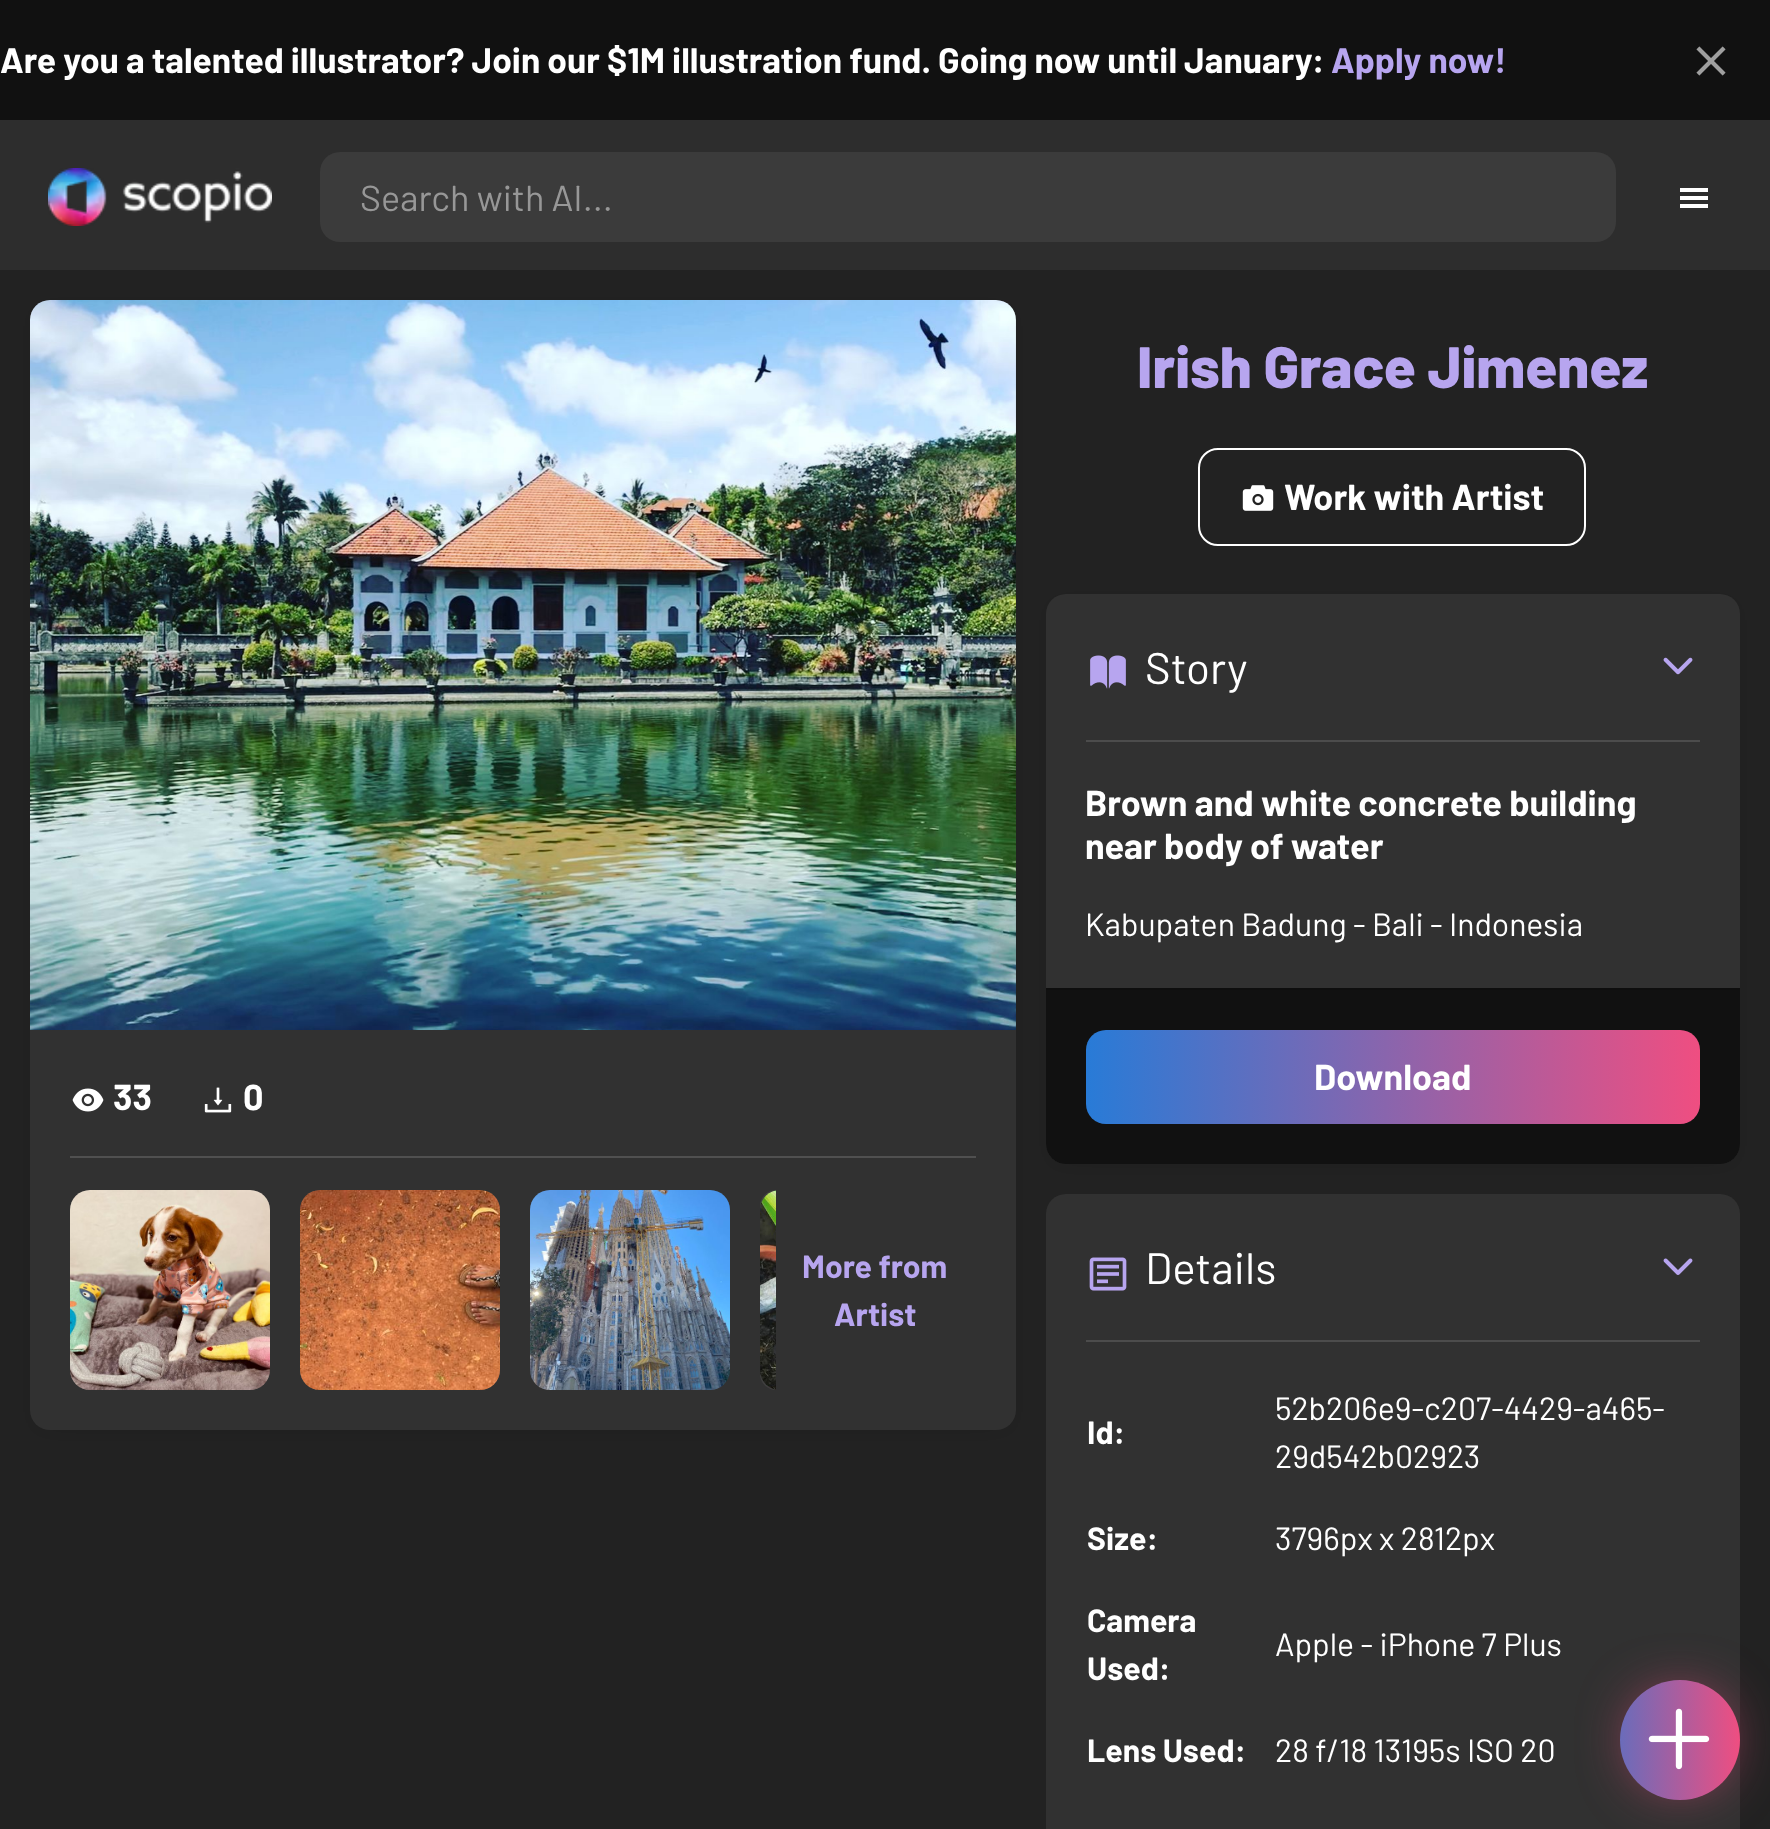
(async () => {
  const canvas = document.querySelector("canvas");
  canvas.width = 1770;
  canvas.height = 1829;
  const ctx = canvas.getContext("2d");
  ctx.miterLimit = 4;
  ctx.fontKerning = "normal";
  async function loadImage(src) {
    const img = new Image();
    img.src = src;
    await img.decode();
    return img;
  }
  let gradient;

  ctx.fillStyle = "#222222";
  ctx.fillRect(0, 0, 1770, 1829);
  ctx.fillStyle = "#111111";
  ctx.fillRect(0, 0, 1770, 120);
  ctx.drawImage(await loadImage("img/1.png"), 1696, 46, 30, 30);
  ctx.fillStyle = "#000000";
  ctx.filter = "blur(12px)";
  ctx.beginPath();
  ctx.rect(52, 326, 942, 1086);
  ctx.fill();
  ctx.filter = "none";
  ctx.fillStyle = "#313131";
  ctx.beginPath();
  ctx.roundRect(30, 300, 986, 1130, 20);
  ctx.fill();
  ctx.drawImage(await loadImage("img/2.png"), 30, 300, 986, 730);
  ctx.drawImage(await loadImage("img/3.png"), 72, 1088, 32, 24);
  ctx.drawImage(await loadImage("img/4.png"), 204, 1087, 28, 26);
  ctx.fillStyle = "#505050";
  ctx.fillRect(70, 1156, 906, 2);
  ctx.fillStyle = "#3f3f3f";
  ctx.beginPath();
  ctx.roundRect(70, 1190, 200, 200, 20);
  ctx.fill();
  ctx.drawImage(await loadImage("img/5.png"), 70, 1190, 200, 200);
  ctx.beginPath();
  ctx.roundRect(300, 1190, 200, 200, 20);
  ctx.fill();
  ctx.drawImage(await loadImage("img/6.png"), 300, 1190, 200, 200);
  ctx.beginPath();
  ctx.roundRect(530, 1190, 200, 200, 20);
  ctx.fill();
  ctx.drawImage(await loadImage("img/7.png"), 530, 1190, 200, 200);
  ctx.beginPath();
  ctx.roundRect(760, 1190, 16, 200, [20, 0, 0, 20]);
  ctx.fill();
  ctx.drawImage(await loadImage("img/8.png"), 760, 1190, 16, 200);
  ctx.beginPath();
  ctx.roundRect(1199, 449, 386, 96, 19);
  ctx.strokeStyle = "#ffffff";
  ctx.lineWidth = 2;
  ctx.stroke();
  ctx.drawImage(await loadImage("img/9.png"), 1242, 485, 32, 26);
  ctx.fillStyle = "#000000";
  ctx.filter = "blur(12px)";
  ctx.beginPath();
  ctx.rect(1068, 620, 650, 526);
  ctx.fill();
  ctx.filter = "none";
  ctx.fillStyle = "#313131";
  ctx.beginPath();
  ctx.roundRect(1046, 594, 694, 570, 20);
  ctx.fill();
  ctx.fillStyle = "#4c4c4c";
  ctx.fillRect(1086, 740, 614, 2);
  ctx.drawImage(await loadImage("img/10.png"), 1090, 655, 36, 34);
  ctx.drawImage(await loadImage("img/11.png"), 1663, 657, 30, 18);
  ctx.fillStyle = "#111111";
  ctx.beginPath();
  ctx.roundRect(1046, 988, 694, 176, [0, 0, 20, 20]);
  ctx.fill();
  ctx.fillStyle = "#0e0e0e";
  ctx.fillRect(1046, 988, 694, 2);
  gradient = ctx.createLinearGradient(1086, 1077, 1700, 1077);
  gradient.addColorStop(0, "#287bd7");
  gradient.addColorStop(1, "#ef4e81");
  ctx.fillStyle = gradient;
  ctx.beginPath();
  ctx.roundRect(1086, 1030, 614, 94, 20);
  ctx.fill();
  ctx.fillStyle = "#313131";
  ctx.beginPath();
  ctx.roundRect(1046, 1194, 694, 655, 20);
  ctx.fill();
  ctx.fillStyle = "#4c4c4c";
  ctx.fillRect(1086, 1340, 614, 2);
  ctx.drawImage(await loadImage("img/12.png"), 1089, 1257, 38, 34);
  ctx.drawImage(await loadImage("img/13.png"), 1663, 1258, 30, 17);
  ctx.fillStyle = "#2d2d2d";
  ctx.fillRect(0, 120, 1770, 150);
  ctx.drawImage(await loadImage("img/14.png"), 48, 168, 224, 58);
  ctx.fillStyle = "#3b3b3b";
  ctx.beginPath();
  ctx.roundRect(320, 152, 1296, 90, 20);
  ctx.fill();
  ctx.drawImage(await loadImage("img/15.png"), 1680, 188, 28, 20);
  ctx.fillStyle = "#ef4e81";
  ctx.filter = "blur(30px)";
  ctx.beginPath();
  ctx.roundRect(1640, 1700, 80, 80, 40);
  ctx.fill();
  ctx.filter = "none";
  gradient = ctx.createLinearGradient(1560, 1740, 1740, 1740);
  gradient.addColorStop(0, "#287bd7");
  gradient.addColorStop(1, "#ef4e81");
  ctx.fillStyle = gradient;
  ctx.beginPath();
  ctx.arc(1680, 1740, 60, 0, Math.PI * 2);
  ctx.fill();
  ctx.drawImage(await loadImage("img/16.png"), 1648, 1708, 62, 62);
  ctx.font = "bold 35.4px Barlow";
  ctx.fillStyle = "#ffffff";
  ctx.fillText("Are you a talented illustrator? Join our $1M illustration fund. Going now until January:", 0, 73);
  ctx.fillStyle = "#b7a5ef";
  ctx.fillText("Apply now!", 1331, 73);
  ctx.font = "bold 36px Barlow";
  ctx.fillStyle = "#ffffff";
  ctx.fillText("33", 113, 1110);
  ctx.fillText("0", 243, 1110);
  ctx.font = "bold 32px Barlow";
  ctx.fillStyle = "#b7a5ef";
  ctx.fillText("More from", 802, 1278);
  ctx.fillText("Artist", 834, 1326);
  ctx.font = "800 58.25px Barlow";
  ctx.fillText("Irish Grace Jimenez", 1137, 388);
  ctx.font = "bold 36px Barlow";
  ctx.fillStyle = "#ffffff";
  ctx.fillText("Work with Artist", 1284, 510);
  ctx.font = "44px Barlow";
  ctx.fillText("Story", 1145, 684);
  ctx.font = "bold 36px Barlow";
  ctx.fillText("Brown and white concrete building", 1085, 816);
  ctx.fillText("near body of water", 1085, 859);
  ctx.font = "32px Barlow";
  ctx.fillText("Kabupaten Badung - Bali - Indonesia", 1085, 936);
  ctx.font = "bold 36px Barlow";
  ctx.fillText("Download", 1314, 1090);
  ctx.font = "44px Barlow";
  ctx.fillText("Details", 1145, 1284);
  ctx.font = "bold 32px Barlow";
  ctx.fillText("Id:", 1087, 1444);
  ctx.font = "32px Barlow";
  ctx.fillText("52b206e9-c207-4429-a465-", 1275, 1420);
  ctx.fillText("29d542b02923", 1275, 1468);
  ctx.font = "bold 32px Barlow";
  ctx.fillText("Size:", 1087, 1550);
  ctx.font = "32px Barlow";
  ctx.fillText("3796px x 2812px", 1275, 1550);
  ctx.font = "bold 32px Barlow";
  ctx.fillText("Camera", 1087, 1632);
  ctx.fillText("Used:", 1087, 1680);
  ctx.font = "32px Barlow";
  ctx.fillText("Apple - iPhone 7 Plus", 1275, 1656);
  ctx.font = "bold 32px Barlow";
  ctx.fillText("Lens Used:", 1087, 1762);
  ctx.font = "32px Barlow";
  ctx.fillText("28 f/18 13195s ISO 20", 1275, 1762);
  ctx.font = "36px Barlow";
  ctx.fillStyle = "#979797";
  ctx.fillText("Search with AI...", 360, 211);
})();
